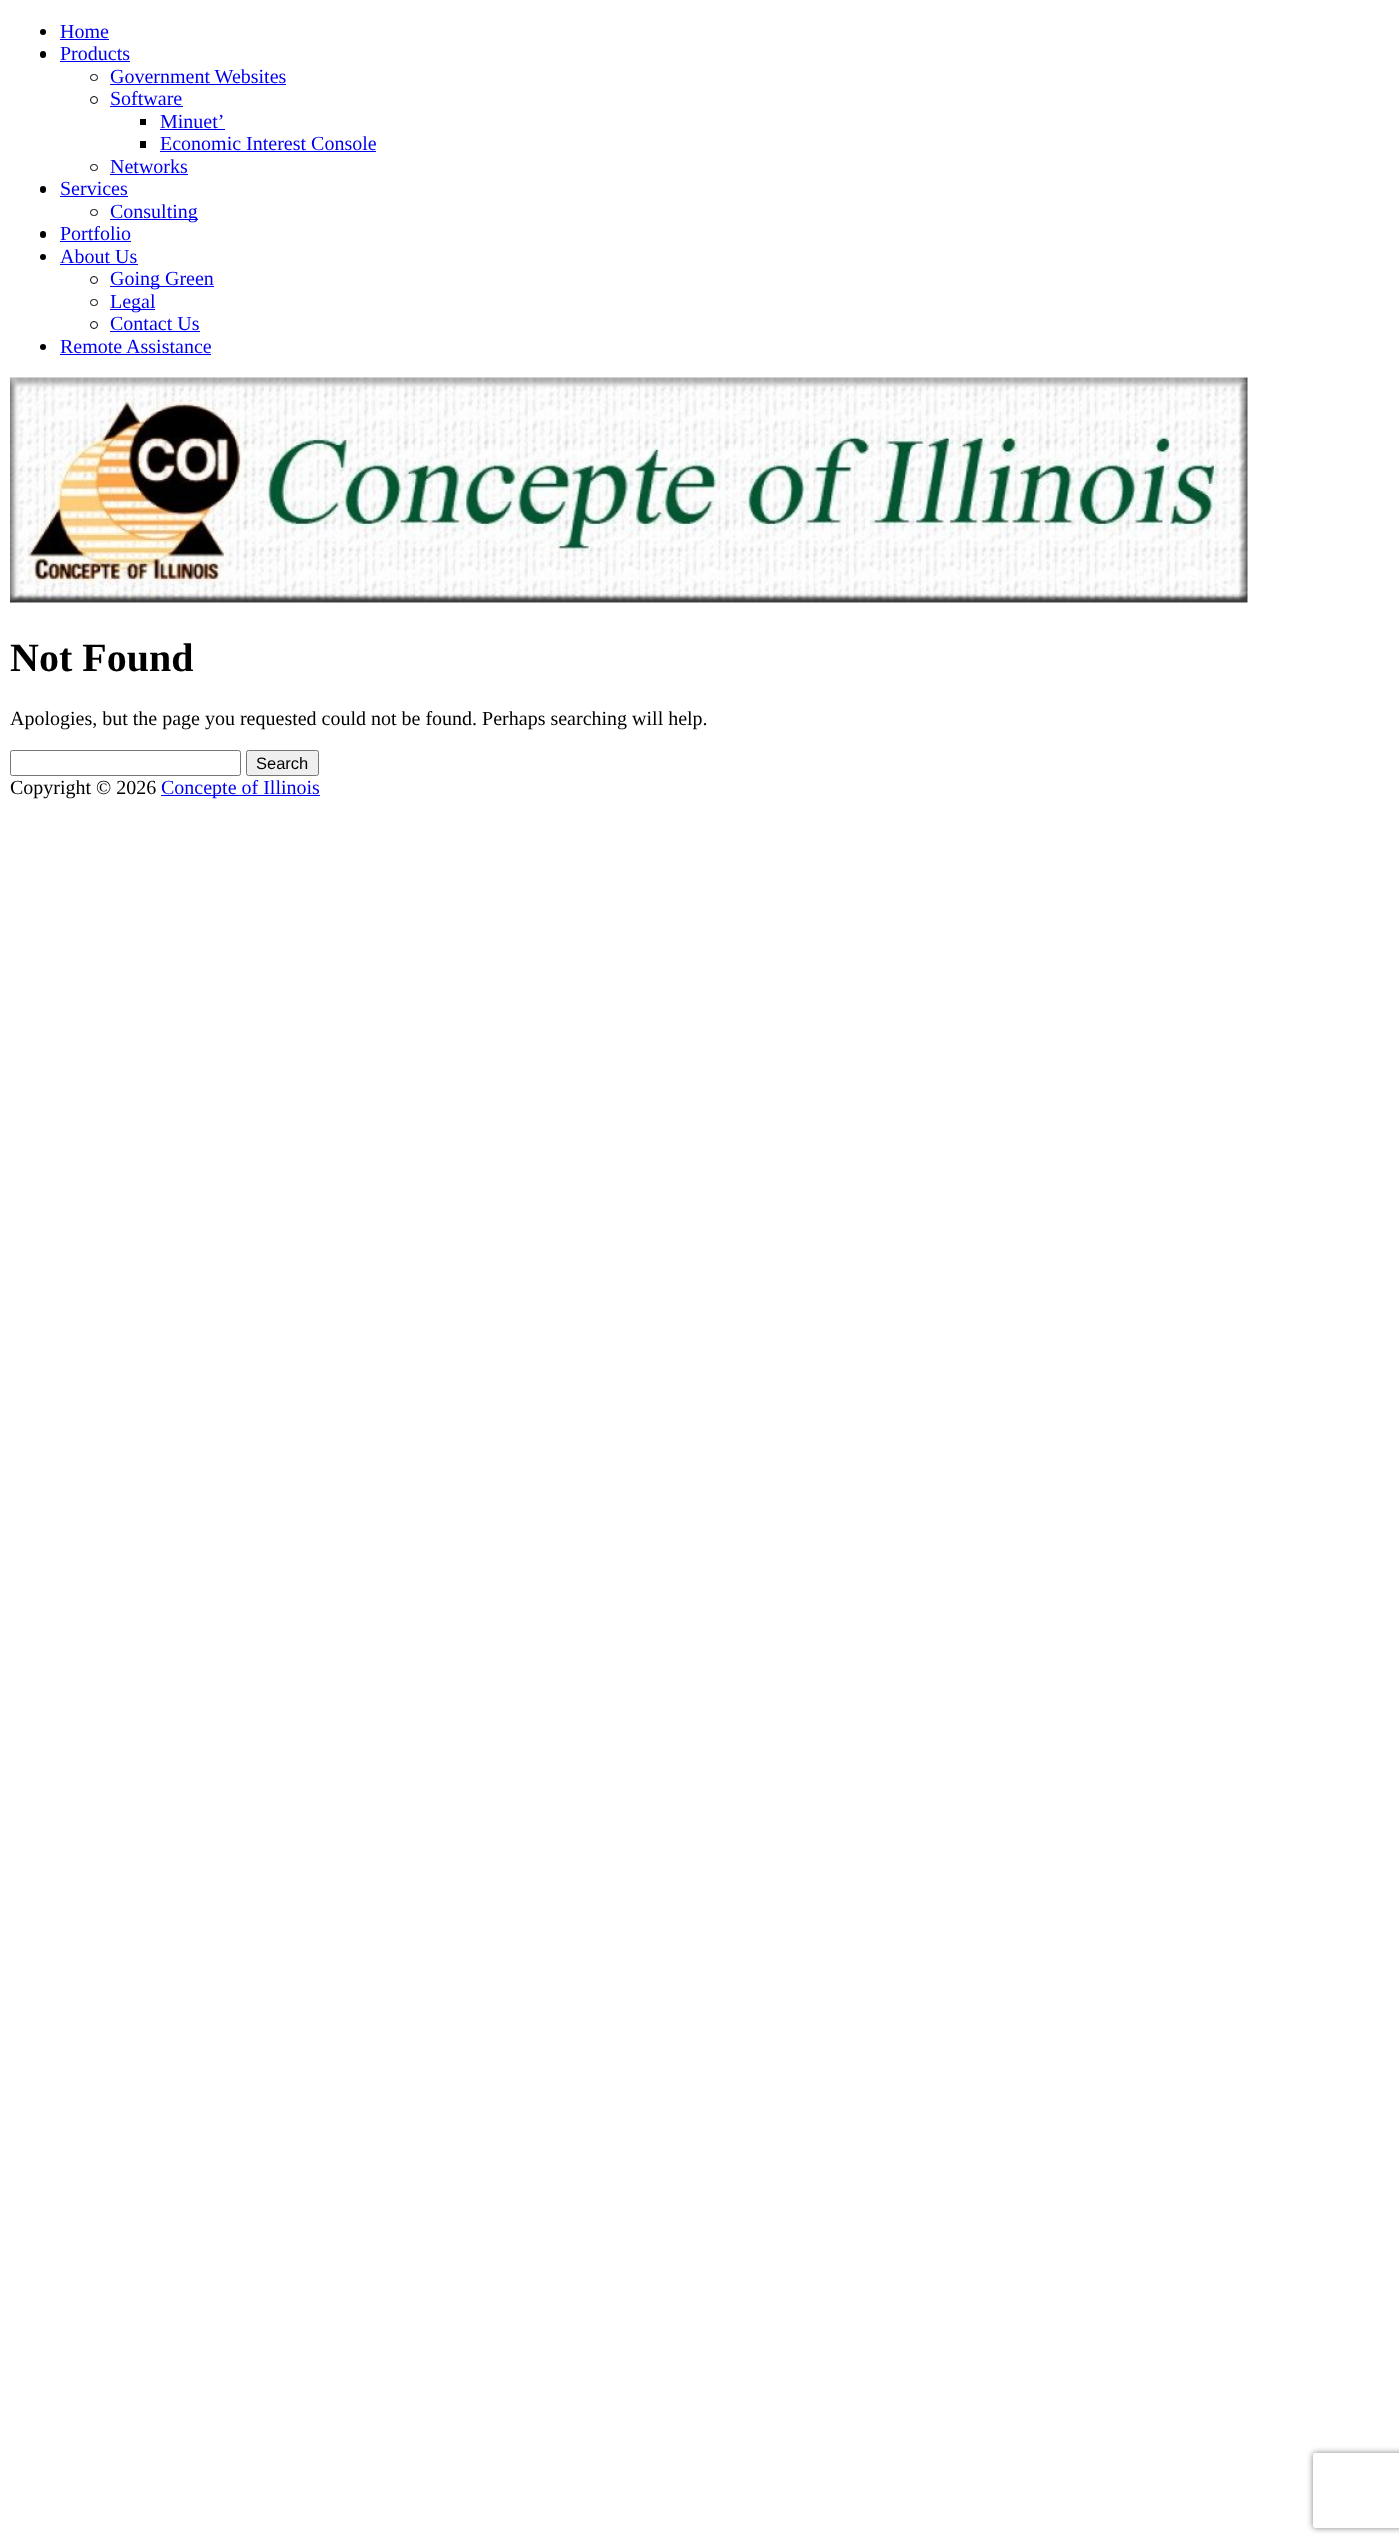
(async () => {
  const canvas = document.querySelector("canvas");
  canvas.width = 1399;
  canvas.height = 2545;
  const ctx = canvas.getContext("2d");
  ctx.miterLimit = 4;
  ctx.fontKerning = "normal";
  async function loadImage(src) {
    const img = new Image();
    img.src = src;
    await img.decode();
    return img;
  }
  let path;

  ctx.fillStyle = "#ffffff";
  ctx.fillRect(0, 0, 1399, 2545);
  ctx.fillStyle = "#000000";
  ctx.beginPath();
  ctx.arc(43, 32, 3, 0, Math.PI * 2);
  ctx.fill();
  ctx.fillStyle = "#0000ee";
  ctx.fillRect(60, 39, 49, 1);
  ctx.fillStyle = "#000000";
  ctx.beginPath();
  ctx.roundRect(40, 51, 6, 7, 3);
  ctx.fill();
  ctx.fillStyle = "#0000ee";
  ctx.fillRect(60, 61, 70, 1);
  ctx.beginPath();
  ctx.roundRect(90.5, 74.5, 7, 6, 3);
  ctx.strokeStyle = "#000000";
  ctx.stroke();
  ctx.fillRect(110, 84, 176, 1);
  ctx.beginPath();
  ctx.arc(94, 100, 3.5, 0, Math.PI * 2);
  ctx.stroke();
  for (const [x, y, w, h, color] of [
    [110, 106, 73, 1, "#0000ee"],
    [140, 119, 6, 6, "#000000"],
    [160, 129, 65, 1, "#0000ee"],
    [140, 141, 6, 7, "#000000"],
    [160, 151, 216, 1, "#0000ee"],
  ]) {
    ctx.fillStyle = color;
    ctx.fillRect(x, y, w, h);
  }
  ctx.beginPath();
  ctx.roundRect(90.5, 164.5, 7, 6, 3);
  ctx.stroke();
  ctx.fillRect(110, 174, 78, 1);
  ctx.fillStyle = "#000000";
  ctx.beginPath();
  ctx.roundRect(40, 186, 6, 7, 3);
  ctx.fill();
  ctx.fillStyle = "#0000ee";
  ctx.fillRect(60, 196, 68, 1);
  ctx.beginPath();
  ctx.roundRect(90.5, 209.5, 7, 6, 3);
  ctx.stroke();
  ctx.fillRect(110, 219, 88, 1);
  ctx.fillStyle = "#000000";
  ctx.beginPath();
  ctx.roundRect(40, 231, 6, 7, 3);
  ctx.fill();
  ctx.fillStyle = "#0000ee";
  ctx.fillRect(60, 241, 71, 1);
  ctx.fillStyle = "#000000";
  ctx.beginPath();
  ctx.arc(43, 257, 3, 0, Math.PI * 2);
  ctx.fill();
  ctx.fillStyle = "#0000ee";
  ctx.fillRect(60, 264, 78, 1);
  ctx.beginPath();
  ctx.arc(94, 280, 3.5, 0, Math.PI * 2);
  ctx.stroke();
  ctx.fillRect(110, 286, 104, 1);
  ctx.beginPath();
  ctx.roundRect(90.5, 299.5, 7, 6, 3);
  ctx.stroke();
  ctx.fillRect(110, 309, 45, 1);
  ctx.beginPath();
  ctx.arc(94, 325, 3.5, 0, Math.PI * 2);
  ctx.stroke();
  ctx.fillRect(110, 331, 90, 1);
  ctx.fillStyle = "#000000";
  ctx.beginPath();
  ctx.arc(43, 347, 3, 0, Math.PI * 2);
  ctx.fill();
  ctx.fillStyle = "#0000ee";
  ctx.fillRect(60, 354, 151, 1);
  ctx.drawImage(await loadImage("img/1.png"), 10, 377, 1238, 226);
  ctx.beginPath();
  ctx.roundRect(10.5, 750.5, 230, 25, 2);
  ctx.strokeStyle = "#767676";
  ctx.stroke();
  ctx.fillStyle = "#efefef";
  ctx.beginPath();
  ctx.roundRect(246.5, 750.5, 72, 25, 2);
  ctx.fill();
  ctx.stroke();
  ctx.fillStyle = "#0000ee";
  ctx.fillRect(161, 795, 159, 1);
  ctx.save();
  path = new Path2D("M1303 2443H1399V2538H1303ZM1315.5 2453H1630.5C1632 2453 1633 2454 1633 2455.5V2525.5C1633 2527 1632 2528 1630.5 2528H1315.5C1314 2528 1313 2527 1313 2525.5V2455.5C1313 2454 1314 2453 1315.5 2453Z");
  ctx.clip(path, "evenodd");
  ctx.fillStyle = "#808080";
  ctx.filter = "blur(3px)";
  ctx.beginPath();
  ctx.roundRect(1313, 2453, 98, 75, 2.5);
  ctx.fill();
  ctx.filter = "none";
  ctx.restore();
  ctx.font = "20px Liberation Serif";
  for (const [text, x, y] of [
    ["Home", 60, 38],
    ["Products", 60, 60],
    ["Government Websites", 110, 83],
    ["Software", 110, 105],
    ["Minuet’", 160, 128],
    ["Economic Interest Console", 160, 150],
    ["Networks", 110, 173],
    ["Services", 60, 195],
    ["Consulting", 110, 218],
    ["Portfolio", 60, 240],
    ["About Us", 60, 263],
    ["Going Green", 110, 285],
    ["Legal", 110, 308],
    ["Contact Us", 110, 330],
    ["Remote Assistance", 60, 353],
  ]) {
    ctx.fillText(text, x, y);
  }
  ctx.font = "bold 40px Liberation Serif";
  ctx.fillStyle = "#000000";
  ctx.fillText("Not Found", 10, 671);
  ctx.font = "20px Liberation Serif";
  ctx.fillText("Apologies, but the page you requested could not be found. Perhaps searching will help.", 10, 725);
  ctx.font = "16.5px Liberation Sans";
  ctx.fillText("Search", 256, 769);
  ctx.font = "20px Liberation Serif";
  ctx.fillText("Copyright © 2026", 10, 794);
  ctx.fillStyle = "#0000ee";
  ctx.fillText("Concepte of Illinois", 161, 794);
})();
